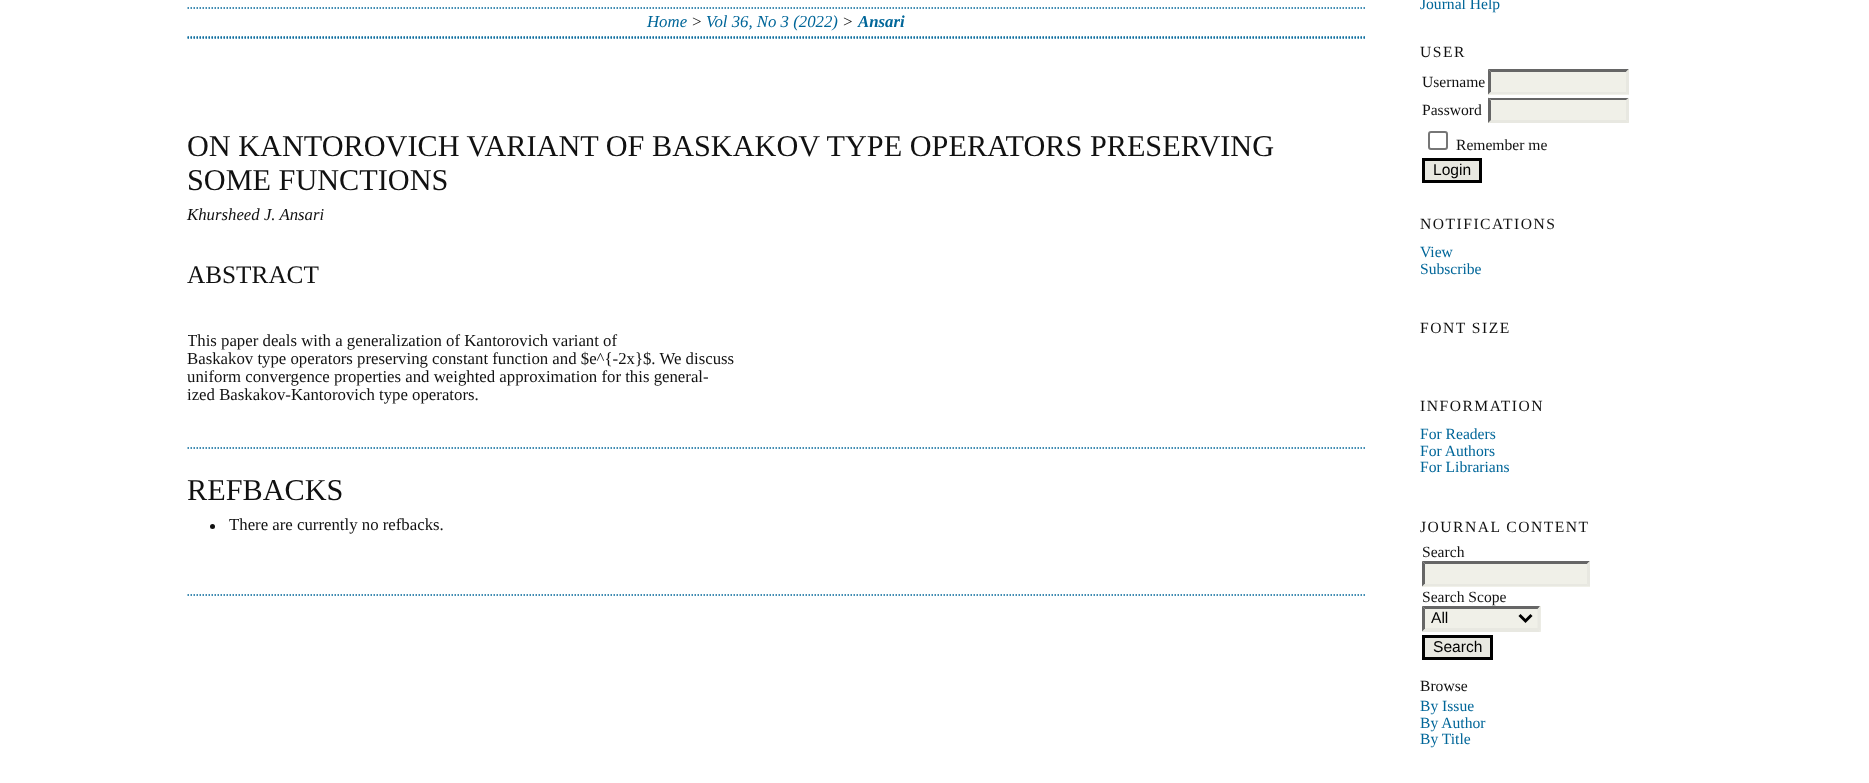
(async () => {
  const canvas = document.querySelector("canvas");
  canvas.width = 1869;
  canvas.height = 783;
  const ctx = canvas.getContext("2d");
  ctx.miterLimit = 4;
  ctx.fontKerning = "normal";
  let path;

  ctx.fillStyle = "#ffffff";
  ctx.fillRect(0, 0, 1869, 783);
  path = new Path2D("M187.5 595H1365");
  ctx.strokeStyle = "#006699";
  ctx.lineWidth = 1.5;
  ctx.setLineDash([1.5, 1.5]);
  ctx.stroke(path);
  path = new Path2D("M187.5 8H1365");
  ctx.stroke(path);
  path = new Path2D("M187.5 37H1365");
  ctx.stroke(path);
  path = new Path2D("M187.5 38H1365");
  ctx.stroke(path);
  path = new Path2D("M187.5 448H1365");
  ctx.stroke(path);
  ctx.fillStyle = "#111111";
  ctx.beginPath();
  ctx.arc(212.5, 526.5, 2.5, 0, Math.PI * 2);
  ctx.fill();
  ctx.fillStyle = "#f0f0e8";
  ctx.fillRect(1488, 69, 141, 26);
  ctx.fillStyle = "#666666";
  path = new Path2D("M1488 69H1629L1626 72H1491Z");
  ctx.fill(path);
  ctx.fillStyle = "#e8e8e1";
  path = new Path2D("M1629 69V94.5L1626 91.5V72Z");
  ctx.fill(path);
  path = new Path2D("M1629 94H1488L1491 92H1626Z");
  ctx.fill(path);
  ctx.fillStyle = "#666666";
  path = new Path2D("M1488 94.5V69L1491 72V91.5Z");
  ctx.fill(path);
  ctx.fillStyle = "#f0f0e8";
  ctx.fillRect(1488, 98, 141, 25);
  ctx.fillStyle = "#666666";
  path = new Path2D("M1488 98H1629L1626 100H1491Z");
  ctx.fill(path);
  ctx.fillStyle = "#e8e8e1";
  path = new Path2D("M1629 97.5V123L1626 120V100.5Z");
  ctx.fill(path);
  path = new Path2D("M1629 123H1488L1491 120H1626Z");
  ctx.fill(path);
  ctx.fillStyle = "#666666";
  path = new Path2D("M1488 123V97.5L1491 100.5V120Z");
  ctx.fill(path);
  ctx.beginPath();
  ctx.roundRect(1429, 132, 18, 17, 2);
  ctx.strokeStyle = "#767676";
  ctx.lineWidth = 2;
  ctx.setLineDash([]);
  ctx.stroke();
  ctx.fillStyle = "#e8e8e1";
  ctx.beginPath();
  ctx.rect(1423.5, 159.5, 57, 22);
  ctx.fill();
  ctx.strokeStyle = "#000000";
  ctx.lineWidth = 3;
  ctx.stroke();
  ctx.fillStyle = "#f0f0e8";
  ctx.fillRect(1422, 561, 168, 26);
  ctx.fillStyle = "#666666";
  path = new Path2D("M1422 561H1590L1587 564H1425Z");
  ctx.fill(path);
  ctx.fillStyle = "#e8e8e1";
  path = new Path2D("M1590 561V586.5L1587 583.5V564Z");
  ctx.fill(path);
  path = new Path2D("M1590 586H1422L1425 584H1587Z");
  ctx.fill(path);
  ctx.fillStyle = "#666666";
  path = new Path2D("M1422 586.5V561L1425 564V583.5Z");
  ctx.fill(path);
  ctx.fillStyle = "#f0f0e8";
  ctx.fillRect(1422, 606, 119, 26);
  ctx.fillStyle = "#666666";
  path = new Path2D("M1422 606H1540L1538 609H1425Z");
  ctx.fill(path);
  ctx.fillStyle = "#e8e8e1";
  path = new Path2D("M1540.5 606V631.5L1537.5 628.5V609Z");
  ctx.fill(path);
  path = new Path2D("M1540 632H1422L1425 628H1538Z");
  ctx.fill(path);
  ctx.fillStyle = "#666666";
  path = new Path2D("M1422 631.5V606L1425 609V628.5Z");
  ctx.fill(path);
  path = new Path2D("M1519.5 615L1525.5 621L1531.5 615");
  ctx.stroke(path);
  ctx.fillStyle = "#e8e8e1";
  ctx.beginPath();
  ctx.rect(1423.5, 636.5, 68, 22);
  ctx.fill();
  ctx.stroke();
  ctx.font = "italic 16.8px Liberation Serif";
  ctx.fillStyle = "#006699";
  ctx.fillText("Home", 647, 27);
  ctx.fillStyle = "#111111";
  ctx.fillText(">", 691, 27);
  ctx.fillStyle = "#006699";
  ctx.fillText("Vol 36, No 3 (2022)", 706, 27);
  ctx.fillStyle = "#111111";
  ctx.fillText(">", 842, 27);
  ctx.font = "italic bold 16.8px Liberation Serif";
  ctx.fillStyle = "#006699";
  ctx.fillText("Ansari", 858, 27);
  ctx.font = "30.25px Liberation Serif";
  ctx.fillStyle = "#111111";
  ctx.fillText("ON KANTOROVICH VARIANT OF BASKAKOV TYPE OPERATORS PRESERVING", 187, 156);
  ctx.fillText("SOME FUNCTIONS", 187, 190);
  ctx.font = "italic 16.8px Liberation Serif";
  ctx.fillText("Khursheed J. Ansari", 187, 220);
  ctx.font = "25.25px Liberation Serif";
  ctx.fillText("ABSTRACT", 187, 283);
  ctx.save();
  ctx.beginPath();
  ctx.rect(188, 0, 1177, 594);
  ctx.clip();
  ctx.font = "16.8px Liberation Serif";
  ctx.fillText("This paper deals with a generalization of Kantorovich variant of", 187, 346);
  ctx.restore();
  ctx.font = "16.8px Liberation Serif";
  for (const [text, x, y] of [
    ["Baskakov type operators preserving constant function and $e^{-2x}$. We discuss", 187, 364],
    ["uniform convergence properties and weighted approximation for this general-", 187, 382],
    ["ized Baskakov-Kantorovich type operators.", 187, 400],
  ]) {
    ctx.fillText(text, x, y);
  }
  ctx.font = "30.25px Liberation Serif";
  ctx.fillText("REFBACKS", 187, 500);
  ctx.font = "16.8px Liberation Serif";
  ctx.fillText("There are currently no refbacks.", 229, 530);
  ctx.font = "15.6px Liberation Serif";
  ctx.fillStyle = "#006699";
  ctx.fillText("Journal Help", 1420, 9);
  ctx.letterSpacing = "1.5px";
  ctx.fillStyle = "#111111";
  ctx.fillText("USER", 1420, 57);
  ctx.letterSpacing = "0px";
  for (const [text, x, y] of [
    ["Username", 1422, 87],
    ["Password", 1422, 115],
    ["Remember me", 1456, 150],
  ]) {
    ctx.fillText(text, x, y);
  }
  ctx.font = "15.6px Liberation Sans";
  ctx.fillStyle = "#000000";
  ctx.fillText("Login", 1433, 175);
  ctx.letterSpacing = "1.5px";
  ctx.font = "15.6px Liberation Serif";
  ctx.fillStyle = "#111111";
  ctx.fillText("NOTIFICATIONS", 1420, 229);
  ctx.letterSpacing = "0px";
  ctx.fillStyle = "#006699";
  ctx.fillText("View", 1420, 257);
  ctx.fillText("Subscribe", 1420, 274);
  ctx.letterSpacing = "1.5px";
  ctx.fillStyle = "#111111";
  ctx.fillText("FONT SIZE", 1420, 333);
  ctx.fillText("INFORMATION", 1420, 411);
  ctx.letterSpacing = "0px";
  ctx.fillStyle = "#006699";
  for (const [text, x, y] of [
    ["For Readers", 1420, 439],
    ["For Authors", 1420, 456],
    ["For Librarians", 1420, 472],
  ]) {
    ctx.fillText(text, x, y);
  }
  ctx.letterSpacing = "1.5px";
  ctx.fillStyle = "#111111";
  ctx.fillText("JOURNAL CONTENT", 1420, 532);
  ctx.letterSpacing = "0px";
  ctx.fillText("Search", 1422, 557);
  ctx.fillText("Search Scope", 1422, 602);
  ctx.font = "15.6px Liberation Sans";
  ctx.fillStyle = "#000000";
  ctx.fillText("All", 1431, 623);
  ctx.fillText("Search", 1433, 652);
  ctx.font = "15.6px Liberation Serif";
  ctx.fillStyle = "#111111";
  ctx.fillText("Browse", 1420, 691);
  ctx.fillStyle = "#006699";
  for (const [text, x, y] of [
    ["By Issue", 1420, 711],
    ["By Author", 1420, 728],
    ["By Title", 1420, 744],
  ]) {
    ctx.fillText(text, x, y);
  }
})();
